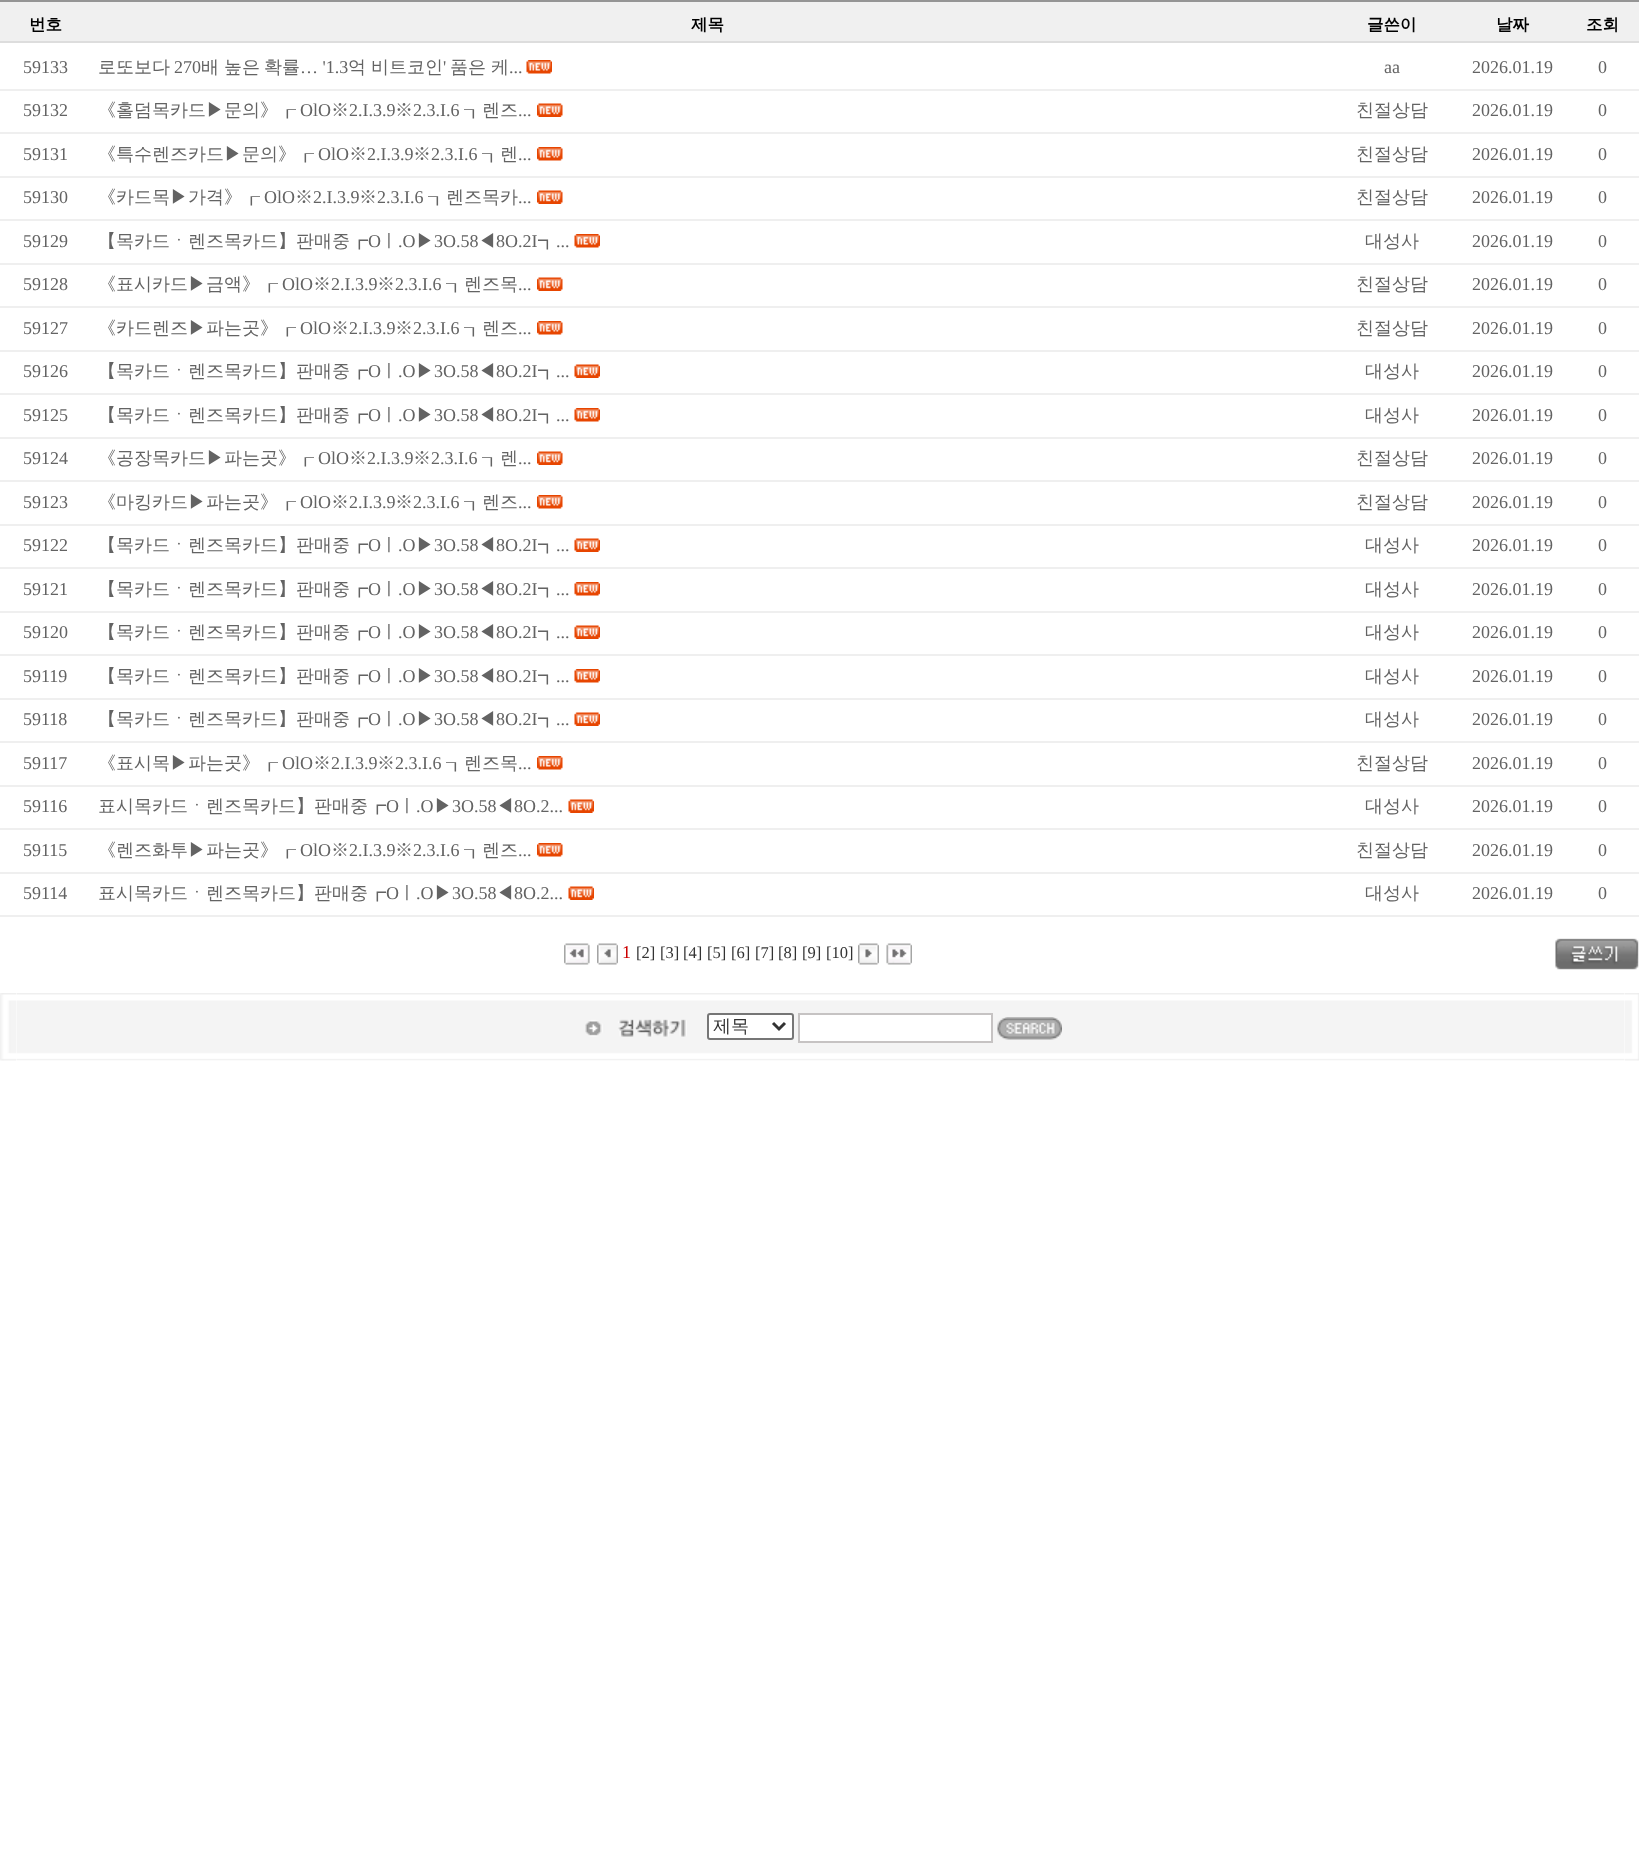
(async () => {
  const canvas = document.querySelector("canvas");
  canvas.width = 1639;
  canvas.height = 1852;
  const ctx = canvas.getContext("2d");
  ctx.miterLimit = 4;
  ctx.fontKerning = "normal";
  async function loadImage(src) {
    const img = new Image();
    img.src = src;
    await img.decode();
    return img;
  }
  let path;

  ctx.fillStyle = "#ffffff";
  ctx.fillRect(0, 0, 1639, 1852);
  for (const [x, y, w, h, color] of [
    [0, 0, 1639, 2, "#959595"],
    [0, 2, 1639, 39, "#f0f0f0"],
    [0, 41, 1639, 2, "#dddddd"],
  ]) {
    ctx.fillStyle = color;
    ctx.fillRect(x, y, w, h);
  }
  ctx.drawImage(await loadImage("img/1.png"), 526, 60, 26, 14);
  ctx.fillStyle = "#efefef";
  ctx.fillRect(0, 89, 1639, 2);
  ctx.drawImage(await loadImage("img/2.png"), 537, 103, 26, 14);
  ctx.fillRect(0, 132, 1639, 2);
  ctx.drawImage(await loadImage("img/3.png"), 537, 147, 26, 14);
  ctx.fillRect(0, 176, 1639, 2);
  ctx.drawImage(await loadImage("img/2.png"), 537, 190, 26, 14);
  ctx.fillRect(0, 219, 1639, 2);
  ctx.drawImage(await loadImage("img/1.png"), 574, 234, 26, 14);
  ctx.fillRect(0, 263, 1639, 2);
  ctx.drawImage(await loadImage("img/2.png"), 537, 277, 26, 14);
  ctx.fillRect(0, 306, 1639, 2);
  ctx.drawImage(await loadImage("img/3.png"), 537, 321, 26, 14);
  ctx.fillRect(0, 350, 1639, 2);
  ctx.drawImage(await loadImage("img/4.png"), 574, 364, 26, 14);
  ctx.fillRect(0, 393, 1639, 2);
  ctx.drawImage(await loadImage("img/1.png"), 574, 408, 26, 14);
  ctx.fillRect(0, 437, 1639, 2);
  ctx.drawImage(await loadImage("img/2.png"), 537, 451, 26, 14);
  ctx.fillRect(0, 480, 1639, 2);
  ctx.drawImage(await loadImage("img/3.png"), 537, 495, 26, 14);
  ctx.fillRect(0, 524, 1639, 2);
  ctx.drawImage(await loadImage("img/4.png"), 574, 538, 26, 14);
  ctx.fillRect(0, 567, 1639, 2);
  ctx.drawImage(await loadImage("img/1.png"), 574, 582, 26, 14);
  ctx.fillRect(0, 611, 1639, 2);
  ctx.drawImage(await loadImage("img/4.png"), 574, 625, 26, 14);
  ctx.fillRect(0, 654, 1639, 2);
  ctx.drawImage(await loadImage("img/1.png"), 574, 669, 26, 14);
  ctx.fillRect(0, 698, 1639, 2);
  ctx.drawImage(await loadImage("img/4.png"), 574, 712, 26, 14);
  ctx.fillRect(0, 741, 1639, 2);
  ctx.drawImage(await loadImage("img/3.png"), 537, 756, 26, 14);
  ctx.fillRect(0, 785, 1639, 2);
  ctx.drawImage(await loadImage("img/4.png"), 568, 799, 26, 14);
  ctx.fillRect(0, 828, 1639, 2);
  ctx.drawImage(await loadImage("img/3.png"), 537, 843, 26, 14);
  ctx.fillRect(0, 872, 1639, 2);
  ctx.drawImage(await loadImage("img/4.png"), 568, 886, 26, 14);
  ctx.fillRect(0, 915, 1639, 2);
  ctx.drawImage(await loadImage("img/5.png"), 564, 943, 26, 22);
  ctx.drawImage(await loadImage("img/6.png"), 597, 943, 21, 22);
  ctx.drawImage(await loadImage("img/7.png"), 858, 943, 21, 22);
  ctx.drawImage(await loadImage("img/8.png"), 886, 943, 26, 22);
  ctx.drawImage(await loadImage("img/9.png"), 1555, 938, 84, 32);
  ctx.drawImage(await loadImage("img/10.png"), 0, 993, 16, 68);
  ctx.drawImage(await loadImage("img/11.png"), 16, 993, 1609, 68);
  ctx.drawImage(await loadImage("img/12.png"), 585, 1019, 102, 18);
  ctx.fillStyle = "#ffffff";
  ctx.beginPath();
  ctx.roundRect(708, 1014, 85, 25, 2);
  ctx.fill();
  ctx.strokeStyle = "#767676";
  ctx.lineWidth = 2;
  ctx.stroke();
  path = new Path2D("M773 1023L779 1029L785 1023");
  ctx.strokeStyle = "#333333";
  ctx.lineWidth = 3;
  ctx.stroke(path);
  ctx.beginPath();
  ctx.rect(799, 1014, 193, 28);
  ctx.fill();
  ctx.strokeStyle = "#c6c3c3";
  ctx.lineWidth = 2;
  ctx.stroke();
  ctx.drawImage(await loadImage("img/13.png"), 997, 1017, 65, 23);
  ctx.drawImage(await loadImage("img/14.png"), 1625, 993, 14, 68);
  ctx.font = "bold 16.5px WenQuanYi Zen Hei";
  ctx.fillStyle = "#000000";
  for (const [text, x, y] of [
    ["번호", 29, 30],
    ["제목", 691, 30],
    ["글쓴이", 1367, 30],
    ["날짜", 1496, 30],
    ["조회", 1586, 30],
  ]) {
    ctx.fillText(text, x, y);
  }
  ctx.font = "18px Liberation Serif";
  ctx.fillStyle = "#636363";
  ctx.fillText("59133", 23, 73);
  ctx.font = "500 18px WenQuanYi Zen Hei";
  ctx.fillText("로또보다", 98, 73);
  ctx.font = "18px Liberation Serif";
  ctx.fillText("270", 174, 73);
  ctx.font = "500 18px WenQuanYi Zen Hei";
  for (const [text, x, y] of [
    ["배", 201, 73],
    ["높은", 224, 73],
    ["확률", 264, 73],
  ]) {
    ctx.fillText(text, x, y);
  }
  ctx.font = "18px Liberation Serif";
  ctx.fillText("… '1.3", 300, 73);
  ctx.font = "500 18px WenQuanYi Zen Hei";
  ctx.fillText("억", 348, 73);
  ctx.fillText("비트코인", 371, 73);
  ctx.font = "18px Liberation Serif";
  ctx.fillText("'", 443, 73);
  ctx.font = "500 18px WenQuanYi Zen Hei";
  ctx.fillText("품은", 450, 73);
  ctx.fillText("케", 491, 73);
  ctx.font = "18px Liberation Serif";
  for (const [text, x, y] of [
    ["...", 509, 73],
    ["aa", 1384, 73],
    ["2026.01.19", 1472, 73],
    ["0", 1598, 73],
    ["59132", 23, 116],
  ]) {
    ctx.fillText(text, x, y);
  }
  ctx.font = "500 18px WenQuanYi Zen Hei";
  ctx.fillText("《홀덤목카드▶문의》┎", 98, 116);
  ctx.font = "18px Liberation Serif";
  ctx.fillText("OlO", 300, 116);
  ctx.font = "500 18px WenQuanYi Zen Hei";
  ctx.fillText("※", 331, 116);
  ctx.font = "18px Liberation Serif";
  ctx.fillText("2.I.3.9", 349, 116);
  ctx.font = "500 18px WenQuanYi Zen Hei";
  ctx.fillText("※", 395, 116);
  ctx.font = "18px Liberation Serif";
  ctx.fillText("2.3.I.6", 413, 116);
  ctx.font = "500 18px WenQuanYi Zen Hei";
  ctx.fillText("┒렌즈", 464, 116);
  ctx.font = "18px Liberation Serif";
  ctx.fillText("...", 518, 116);
  ctx.font = "500 18px WenQuanYi Zen Hei";
  ctx.fillText("친절상담", 1356, 116);
  ctx.font = "18px Liberation Serif";
  for (const [text, x, y] of [
    ["2026.01.19", 1472, 116],
    ["0", 1598, 116],
    ["59131", 23, 160],
  ]) {
    ctx.fillText(text, x, y);
  }
  ctx.font = "500 18px WenQuanYi Zen Hei";
  ctx.fillText("《특수렌즈카드▶문의》┎", 98, 160);
  ctx.font = "18px Liberation Serif";
  ctx.fillText("OlO", 318, 160);
  ctx.font = "500 18px WenQuanYi Zen Hei";
  ctx.fillText("※", 349, 160);
  ctx.font = "18px Liberation Serif";
  ctx.fillText("2.I.3.9", 367, 160);
  ctx.font = "500 18px WenQuanYi Zen Hei";
  ctx.fillText("※", 413, 160);
  ctx.font = "18px Liberation Serif";
  ctx.fillText("2.3.I.6", 431, 160);
  ctx.font = "500 18px WenQuanYi Zen Hei";
  ctx.fillText("┒렌", 482, 160);
  ctx.font = "18px Liberation Serif";
  ctx.fillText("...", 518, 160);
  ctx.font = "500 18px WenQuanYi Zen Hei";
  ctx.fillText("친절상담", 1356, 160);
  ctx.font = "18px Liberation Serif";
  for (const [text, x, y] of [
    ["2026.01.19", 1472, 160],
    ["0", 1598, 160],
    ["59130", 23, 203],
  ]) {
    ctx.fillText(text, x, y);
  }
  ctx.font = "500 18px WenQuanYi Zen Hei";
  ctx.fillText("《카드목▶가격》┎", 98, 203);
  ctx.font = "18px Liberation Serif";
  ctx.fillText("OlO", 264, 203);
  ctx.font = "500 18px WenQuanYi Zen Hei";
  ctx.fillText("※", 295, 203);
  ctx.font = "18px Liberation Serif";
  ctx.fillText("2.I.3.9", 313, 203);
  ctx.font = "500 18px WenQuanYi Zen Hei";
  ctx.fillText("※", 359, 203);
  ctx.font = "18px Liberation Serif";
  ctx.fillText("2.3.I.6", 377, 203);
  ctx.font = "500 18px WenQuanYi Zen Hei";
  ctx.fillText("┒렌즈목카", 428, 203);
  ctx.font = "18px Liberation Serif";
  ctx.fillText("...", 518, 203);
  ctx.font = "500 18px WenQuanYi Zen Hei";
  ctx.fillText("친절상담", 1356, 203);
  ctx.font = "18px Liberation Serif";
  for (const [text, x, y] of [
    ["2026.01.19", 1472, 203],
    ["0", 1598, 203],
    ["59129", 23, 247],
  ]) {
    ctx.fillText(text, x, y);
  }
  ctx.font = "500 18px WenQuanYi Zen Hei";
  ctx.fillText("【목카드ㆍ렌즈목카드】판매중┏", 98, 247);
  ctx.font = "18px Liberation Serif";
  ctx.fillText("O", 368, 247);
  ctx.font = "500 18px WenQuanYi Zen Hei";
  ctx.fillText("ㅣ", 380, 247);
  ctx.font = "18px Liberation Serif";
  ctx.fillText(".O", 398, 247);
  ctx.font = "500 18px WenQuanYi Zen Hei";
  ctx.fillText("▶", 416, 247);
  ctx.font = "18px Liberation Serif";
  ctx.fillText("3O.58", 434, 247);
  ctx.font = "500 18px WenQuanYi Zen Hei";
  ctx.fillText("◀", 478, 247);
  ctx.font = "18px Liberation Serif";
  ctx.fillText("8O.2I", 496, 247);
  ctx.font = "500 18px WenQuanYi Zen Hei";
  ctx.fillText("┓", 538, 247);
  ctx.font = "18px Liberation Serif";
  ctx.fillText("...", 556, 247);
  ctx.font = "500 18px WenQuanYi Zen Hei";
  ctx.fillText("대성사", 1365, 247);
  ctx.font = "18px Liberation Serif";
  for (const [text, x, y] of [
    ["2026.01.19", 1472, 247],
    ["0", 1598, 247],
    ["59128", 23, 290],
  ]) {
    ctx.fillText(text, x, y);
  }
  ctx.font = "500 18px WenQuanYi Zen Hei";
  ctx.fillText("《표시카드▶금액》┎", 98, 290);
  ctx.font = "18px Liberation Serif";
  ctx.fillText("OlO", 282, 290);
  ctx.font = "500 18px WenQuanYi Zen Hei";
  ctx.fillText("※", 313, 290);
  ctx.font = "18px Liberation Serif";
  ctx.fillText("2.I.3.9", 331, 290);
  ctx.font = "500 18px WenQuanYi Zen Hei";
  ctx.fillText("※", 377, 290);
  ctx.font = "18px Liberation Serif";
  ctx.fillText("2.3.I.6", 395, 290);
  ctx.font = "500 18px WenQuanYi Zen Hei";
  ctx.fillText("┒렌즈목", 446, 290);
  ctx.font = "18px Liberation Serif";
  ctx.fillText("...", 518, 290);
  ctx.font = "500 18px WenQuanYi Zen Hei";
  ctx.fillText("친절상담", 1356, 290);
  ctx.font = "18px Liberation Serif";
  for (const [text, x, y] of [
    ["2026.01.19", 1472, 290],
    ["0", 1598, 290],
    ["59127", 23, 334],
  ]) {
    ctx.fillText(text, x, y);
  }
  ctx.font = "500 18px WenQuanYi Zen Hei";
  ctx.fillText("《카드렌즈▶파는곳》┎", 98, 334);
  ctx.font = "18px Liberation Serif";
  ctx.fillText("OlO", 300, 334);
  ctx.font = "500 18px WenQuanYi Zen Hei";
  ctx.fillText("※", 331, 334);
  ctx.font = "18px Liberation Serif";
  ctx.fillText("2.I.3.9", 349, 334);
  ctx.font = "500 18px WenQuanYi Zen Hei";
  ctx.fillText("※", 395, 334);
  ctx.font = "18px Liberation Serif";
  ctx.fillText("2.3.I.6", 413, 334);
  ctx.font = "500 18px WenQuanYi Zen Hei";
  ctx.fillText("┒렌즈", 464, 334);
  ctx.font = "18px Liberation Serif";
  ctx.fillText("...", 518, 334);
  ctx.font = "500 18px WenQuanYi Zen Hei";
  ctx.fillText("친절상담", 1356, 334);
  ctx.font = "18px Liberation Serif";
  for (const [text, x, y] of [
    ["2026.01.19", 1472, 334],
    ["0", 1598, 334],
    ["59126", 23, 377],
  ]) {
    ctx.fillText(text, x, y);
  }
  ctx.font = "500 18px WenQuanYi Zen Hei";
  ctx.fillText("【목카드ㆍ렌즈목카드】판매중┏", 98, 377);
  ctx.font = "18px Liberation Serif";
  ctx.fillText("O", 368, 377);
  ctx.font = "500 18px WenQuanYi Zen Hei";
  ctx.fillText("ㅣ", 380, 377);
  ctx.font = "18px Liberation Serif";
  ctx.fillText(".O", 398, 377);
  ctx.font = "500 18px WenQuanYi Zen Hei";
  ctx.fillText("▶", 416, 377);
  ctx.font = "18px Liberation Serif";
  ctx.fillText("3O.58", 434, 377);
  ctx.font = "500 18px WenQuanYi Zen Hei";
  ctx.fillText("◀", 478, 377);
  ctx.font = "18px Liberation Serif";
  ctx.fillText("8O.2I", 496, 377);
  ctx.font = "500 18px WenQuanYi Zen Hei";
  ctx.fillText("┓", 538, 377);
  ctx.font = "18px Liberation Serif";
  ctx.fillText("...", 556, 377);
  ctx.font = "500 18px WenQuanYi Zen Hei";
  ctx.fillText("대성사", 1365, 377);
  ctx.font = "18px Liberation Serif";
  for (const [text, x, y] of [
    ["2026.01.19", 1472, 377],
    ["0", 1598, 377],
    ["59125", 23, 421],
  ]) {
    ctx.fillText(text, x, y);
  }
  ctx.font = "500 18px WenQuanYi Zen Hei";
  ctx.fillText("【목카드ㆍ렌즈목카드】판매중┏", 98, 421);
  ctx.font = "18px Liberation Serif";
  ctx.fillText("O", 368, 421);
  ctx.font = "500 18px WenQuanYi Zen Hei";
  ctx.fillText("ㅣ", 380, 421);
  ctx.font = "18px Liberation Serif";
  ctx.fillText(".O", 398, 421);
  ctx.font = "500 18px WenQuanYi Zen Hei";
  ctx.fillText("▶", 416, 421);
  ctx.font = "18px Liberation Serif";
  ctx.fillText("3O.58", 434, 421);
  ctx.font = "500 18px WenQuanYi Zen Hei";
  ctx.fillText("◀", 478, 421);
  ctx.font = "18px Liberation Serif";
  ctx.fillText("8O.2I", 496, 421);
  ctx.font = "500 18px WenQuanYi Zen Hei";
  ctx.fillText("┓", 538, 421);
  ctx.font = "18px Liberation Serif";
  ctx.fillText("...", 556, 421);
  ctx.font = "500 18px WenQuanYi Zen Hei";
  ctx.fillText("대성사", 1365, 421);
  ctx.font = "18px Liberation Serif";
  for (const [text, x, y] of [
    ["2026.01.19", 1472, 421],
    ["0", 1598, 421],
    ["59124", 23, 464],
  ]) {
    ctx.fillText(text, x, y);
  }
  ctx.font = "500 18px WenQuanYi Zen Hei";
  ctx.fillText("《공장목카드▶파는곳》┎", 98, 464);
  ctx.font = "18px Liberation Serif";
  ctx.fillText("OlO", 318, 464);
  ctx.font = "500 18px WenQuanYi Zen Hei";
  ctx.fillText("※", 349, 464);
  ctx.font = "18px Liberation Serif";
  ctx.fillText("2.I.3.9", 367, 464);
  ctx.font = "500 18px WenQuanYi Zen Hei";
  ctx.fillText("※", 413, 464);
  ctx.font = "18px Liberation Serif";
  ctx.fillText("2.3.I.6", 431, 464);
  ctx.font = "500 18px WenQuanYi Zen Hei";
  ctx.fillText("┒렌", 482, 464);
  ctx.font = "18px Liberation Serif";
  ctx.fillText("...", 518, 464);
  ctx.font = "500 18px WenQuanYi Zen Hei";
  ctx.fillText("친절상담", 1356, 464);
  ctx.font = "18px Liberation Serif";
  for (const [text, x, y] of [
    ["2026.01.19", 1472, 464],
    ["0", 1598, 464],
    ["59123", 23, 508],
  ]) {
    ctx.fillText(text, x, y);
  }
  ctx.font = "500 18px WenQuanYi Zen Hei";
  ctx.fillText("《마킹카드▶파는곳》┎", 98, 508);
  ctx.font = "18px Liberation Serif";
  ctx.fillText("OlO", 300, 508);
  ctx.font = "500 18px WenQuanYi Zen Hei";
  ctx.fillText("※", 331, 508);
  ctx.font = "18px Liberation Serif";
  ctx.fillText("2.I.3.9", 349, 508);
  ctx.font = "500 18px WenQuanYi Zen Hei";
  ctx.fillText("※", 395, 508);
  ctx.font = "18px Liberation Serif";
  ctx.fillText("2.3.I.6", 413, 508);
  ctx.font = "500 18px WenQuanYi Zen Hei";
  ctx.fillText("┒렌즈", 464, 508);
  ctx.font = "18px Liberation Serif";
  ctx.fillText("...", 518, 508);
  ctx.font = "500 18px WenQuanYi Zen Hei";
  ctx.fillText("친절상담", 1356, 508);
  ctx.font = "18px Liberation Serif";
  for (const [text, x, y] of [
    ["2026.01.19", 1472, 508],
    ["0", 1598, 508],
    ["59122", 23, 551],
  ]) {
    ctx.fillText(text, x, y);
  }
  ctx.font = "500 18px WenQuanYi Zen Hei";
  ctx.fillText("【목카드ㆍ렌즈목카드】판매중┏", 98, 551);
  ctx.font = "18px Liberation Serif";
  ctx.fillText("O", 368, 551);
  ctx.font = "500 18px WenQuanYi Zen Hei";
  ctx.fillText("ㅣ", 380, 551);
  ctx.font = "18px Liberation Serif";
  ctx.fillText(".O", 398, 551);
  ctx.font = "500 18px WenQuanYi Zen Hei";
  ctx.fillText("▶", 416, 551);
  ctx.font = "18px Liberation Serif";
  ctx.fillText("3O.58", 434, 551);
  ctx.font = "500 18px WenQuanYi Zen Hei";
  ctx.fillText("◀", 478, 551);
  ctx.font = "18px Liberation Serif";
  ctx.fillText("8O.2I", 496, 551);
  ctx.font = "500 18px WenQuanYi Zen Hei";
  ctx.fillText("┓", 538, 551);
  ctx.font = "18px Liberation Serif";
  ctx.fillText("...", 556, 551);
  ctx.font = "500 18px WenQuanYi Zen Hei";
  ctx.fillText("대성사", 1365, 551);
  ctx.font = "18px Liberation Serif";
  for (const [text, x, y] of [
    ["2026.01.19", 1472, 551],
    ["0", 1598, 551],
    ["59121", 23, 595],
  ]) {
    ctx.fillText(text, x, y);
  }
  ctx.font = "500 18px WenQuanYi Zen Hei";
  ctx.fillText("【목카드ㆍ렌즈목카드】판매중┏", 98, 595);
  ctx.font = "18px Liberation Serif";
  ctx.fillText("O", 368, 595);
  ctx.font = "500 18px WenQuanYi Zen Hei";
  ctx.fillText("ㅣ", 380, 595);
  ctx.font = "18px Liberation Serif";
  ctx.fillText(".O", 398, 595);
  ctx.font = "500 18px WenQuanYi Zen Hei";
  ctx.fillText("▶", 416, 595);
  ctx.font = "18px Liberation Serif";
  ctx.fillText("3O.58", 434, 595);
  ctx.font = "500 18px WenQuanYi Zen Hei";
  ctx.fillText("◀", 478, 595);
  ctx.font = "18px Liberation Serif";
  ctx.fillText("8O.2I", 496, 595);
  ctx.font = "500 18px WenQuanYi Zen Hei";
  ctx.fillText("┓", 538, 595);
  ctx.font = "18px Liberation Serif";
  ctx.fillText("...", 556, 595);
  ctx.font = "500 18px WenQuanYi Zen Hei";
  ctx.fillText("대성사", 1365, 595);
  ctx.font = "18px Liberation Serif";
  for (const [text, x, y] of [
    ["2026.01.19", 1472, 595],
    ["0", 1598, 595],
    ["59120", 23, 638],
  ]) {
    ctx.fillText(text, x, y);
  }
  ctx.font = "500 18px WenQuanYi Zen Hei";
  ctx.fillText("【목카드ㆍ렌즈목카드】판매중┏", 98, 638);
  ctx.font = "18px Liberation Serif";
  ctx.fillText("O", 368, 638);
  ctx.font = "500 18px WenQuanYi Zen Hei";
  ctx.fillText("ㅣ", 380, 638);
  ctx.font = "18px Liberation Serif";
  ctx.fillText(".O", 398, 638);
  ctx.font = "500 18px WenQuanYi Zen Hei";
  ctx.fillText("▶", 416, 638);
  ctx.font = "18px Liberation Serif";
  ctx.fillText("3O.58", 434, 638);
  ctx.font = "500 18px WenQuanYi Zen Hei";
  ctx.fillText("◀", 478, 638);
  ctx.font = "18px Liberation Serif";
  ctx.fillText("8O.2I", 496, 638);
  ctx.font = "500 18px WenQuanYi Zen Hei";
  ctx.fillText("┓", 538, 638);
  ctx.font = "18px Liberation Serif";
  ctx.fillText("...", 556, 638);
  ctx.font = "500 18px WenQuanYi Zen Hei";
  ctx.fillText("대성사", 1365, 638);
  ctx.font = "18px Liberation Serif";
  for (const [text, x, y] of [
    ["2026.01.19", 1472, 638],
    ["0", 1598, 638],
    ["59119", 23, 682],
  ]) {
    ctx.fillText(text, x, y);
  }
  ctx.font = "500 18px WenQuanYi Zen Hei";
  ctx.fillText("【목카드ㆍ렌즈목카드】판매중┏", 98, 682);
  ctx.font = "18px Liberation Serif";
  ctx.fillText("O", 368, 682);
  ctx.font = "500 18px WenQuanYi Zen Hei";
  ctx.fillText("ㅣ", 380, 682);
  ctx.font = "18px Liberation Serif";
  ctx.fillText(".O", 398, 682);
  ctx.font = "500 18px WenQuanYi Zen Hei";
  ctx.fillText("▶", 416, 682);
  ctx.font = "18px Liberation Serif";
  ctx.fillText("3O.58", 434, 682);
  ctx.font = "500 18px WenQuanYi Zen Hei";
  ctx.fillText("◀", 478, 682);
  ctx.font = "18px Liberation Serif";
  ctx.fillText("8O.2I", 496, 682);
  ctx.font = "500 18px WenQuanYi Zen Hei";
  ctx.fillText("┓", 538, 682);
  ctx.font = "18px Liberation Serif";
  ctx.fillText("...", 556, 682);
  ctx.font = "500 18px WenQuanYi Zen Hei";
  ctx.fillText("대성사", 1365, 682);
  ctx.font = "18px Liberation Serif";
  for (const [text, x, y] of [
    ["2026.01.19", 1472, 682],
    ["0", 1598, 682],
    ["59118", 23, 725],
  ]) {
    ctx.fillText(text, x, y);
  }
  ctx.font = "500 18px WenQuanYi Zen Hei";
  ctx.fillText("【목카드ㆍ렌즈목카드】판매중┏", 98, 725);
  ctx.font = "18px Liberation Serif";
  ctx.fillText("O", 368, 725);
  ctx.font = "500 18px WenQuanYi Zen Hei";
  ctx.fillText("ㅣ", 380, 725);
  ctx.font = "18px Liberation Serif";
  ctx.fillText(".O", 398, 725);
  ctx.font = "500 18px WenQuanYi Zen Hei";
  ctx.fillText("▶", 416, 725);
  ctx.font = "18px Liberation Serif";
  ctx.fillText("3O.58", 434, 725);
  ctx.font = "500 18px WenQuanYi Zen Hei";
  ctx.fillText("◀", 478, 725);
  ctx.font = "18px Liberation Serif";
  ctx.fillText("8O.2I", 496, 725);
  ctx.font = "500 18px WenQuanYi Zen Hei";
  ctx.fillText("┓", 538, 725);
  ctx.font = "18px Liberation Serif";
  ctx.fillText("...", 556, 725);
  ctx.font = "500 18px WenQuanYi Zen Hei";
  ctx.fillText("대성사", 1365, 725);
  ctx.font = "18px Liberation Serif";
  for (const [text, x, y] of [
    ["2026.01.19", 1472, 725],
    ["0", 1598, 725],
    ["59117", 23, 769],
  ]) {
    ctx.fillText(text, x, y);
  }
  ctx.font = "500 18px WenQuanYi Zen Hei";
  ctx.fillText("《표시목▶파는곳》┎", 98, 769);
  ctx.font = "18px Liberation Serif";
  ctx.fillText("OlO", 282, 769);
  ctx.font = "500 18px WenQuanYi Zen Hei";
  ctx.fillText("※", 313, 769);
  ctx.font = "18px Liberation Serif";
  ctx.fillText("2.I.3.9", 331, 769);
  ctx.font = "500 18px WenQuanYi Zen Hei";
  ctx.fillText("※", 377, 769);
  ctx.font = "18px Liberation Serif";
  ctx.fillText("2.3.I.6", 395, 769);
  ctx.font = "500 18px WenQuanYi Zen Hei";
  ctx.fillText("┒렌즈목", 446, 769);
  ctx.font = "18px Liberation Serif";
  ctx.fillText("...", 518, 769);
  ctx.font = "500 18px WenQuanYi Zen Hei";
  ctx.fillText("친절상담", 1356, 769);
  ctx.font = "18px Liberation Serif";
  for (const [text, x, y] of [
    ["2026.01.19", 1472, 769],
    ["0", 1598, 769],
    ["59116", 23, 812],
  ]) {
    ctx.fillText(text, x, y);
  }
  ctx.font = "500 18px WenQuanYi Zen Hei";
  ctx.fillText("표시목카드ㆍ렌즈목카드】판매중┏", 98, 812);
  ctx.font = "18px Liberation Serif";
  ctx.fillText("O", 386, 812);
  ctx.font = "500 18px WenQuanYi Zen Hei";
  ctx.fillText("ㅣ", 398, 812);
  ctx.font = "18px Liberation Serif";
  ctx.fillText(".O", 416, 812);
  ctx.font = "500 18px WenQuanYi Zen Hei";
  ctx.fillText("▶", 434, 812);
  ctx.font = "18px Liberation Serif";
  ctx.fillText("3O.58", 452, 812);
  ctx.font = "500 18px WenQuanYi Zen Hei";
  ctx.fillText("◀", 496, 812);
  ctx.font = "18px Liberation Serif";
  ctx.fillText("8O.2...", 514, 812);
  ctx.font = "500 18px WenQuanYi Zen Hei";
  ctx.fillText("대성사", 1365, 812);
  ctx.font = "18px Liberation Serif";
  for (const [text, x, y] of [
    ["2026.01.19", 1472, 812],
    ["0", 1598, 812],
    ["59115", 23, 856],
  ]) {
    ctx.fillText(text, x, y);
  }
  ctx.font = "500 18px WenQuanYi Zen Hei";
  ctx.fillText("《렌즈화투▶파는곳》┎", 98, 856);
  ctx.font = "18px Liberation Serif";
  ctx.fillText("OlO", 300, 856);
  ctx.font = "500 18px WenQuanYi Zen Hei";
  ctx.fillText("※", 331, 856);
  ctx.font = "18px Liberation Serif";
  ctx.fillText("2.I.3.9", 349, 856);
  ctx.font = "500 18px WenQuanYi Zen Hei";
  ctx.fillText("※", 395, 856);
  ctx.font = "18px Liberation Serif";
  ctx.fillText("2.3.I.6", 413, 856);
  ctx.font = "500 18px WenQuanYi Zen Hei";
  ctx.fillText("┒렌즈", 464, 856);
  ctx.font = "18px Liberation Serif";
  ctx.fillText("...", 518, 856);
  ctx.font = "500 18px WenQuanYi Zen Hei";
  ctx.fillText("친절상담", 1356, 856);
  ctx.font = "18px Liberation Serif";
  for (const [text, x, y] of [
    ["2026.01.19", 1472, 856],
    ["0", 1598, 856],
    ["59114", 23, 899],
  ]) {
    ctx.fillText(text, x, y);
  }
  ctx.font = "500 18px WenQuanYi Zen Hei";
  ctx.fillText("표시목카드ㆍ렌즈목카드】판매중┏", 98, 899);
  ctx.font = "18px Liberation Serif";
  ctx.fillText("O", 386, 899);
  ctx.font = "500 18px WenQuanYi Zen Hei";
  ctx.fillText("ㅣ", 398, 899);
  ctx.font = "18px Liberation Serif";
  ctx.fillText(".O", 416, 899);
  ctx.font = "500 18px WenQuanYi Zen Hei";
  ctx.fillText("▶", 434, 899);
  ctx.font = "18px Liberation Serif";
  ctx.fillText("3O.58", 452, 899);
  ctx.font = "500 18px WenQuanYi Zen Hei";
  ctx.fillText("◀", 496, 899);
  ctx.font = "18px Liberation Serif";
  ctx.fillText("8O.2...", 514, 899);
  ctx.font = "500 18px WenQuanYi Zen Hei";
  ctx.fillText("대성사", 1365, 899);
  ctx.font = "18px Liberation Serif";
  ctx.fillText("2026.01.19", 1472, 899);
  ctx.fillText("0", 1598, 899);
  ctx.fillStyle = "#cc0000";
  ctx.fillText("1", 622, 958);
  ctx.font = "16.5px Liberation Serif";
  ctx.fillStyle = "#333333";
  for (const [text, x, y] of [
    ["[2]", 636, 958],
    ["[3]", 660, 958],
    ["[4]", 683, 958],
    ["[5]", 707, 958],
    ["[6]", 731, 958],
    ["[7]", 755, 958],
    ["[8]", 778, 958],
    ["[9]", 802, 958],
    ["[10]", 826, 958],
  ]) {
    ctx.fillText(text, x, y);
  }
  ctx.font = "500 18px WenQuanYi Zen Hei";
  ctx.fillText("제목", 713, 1032);
})();
